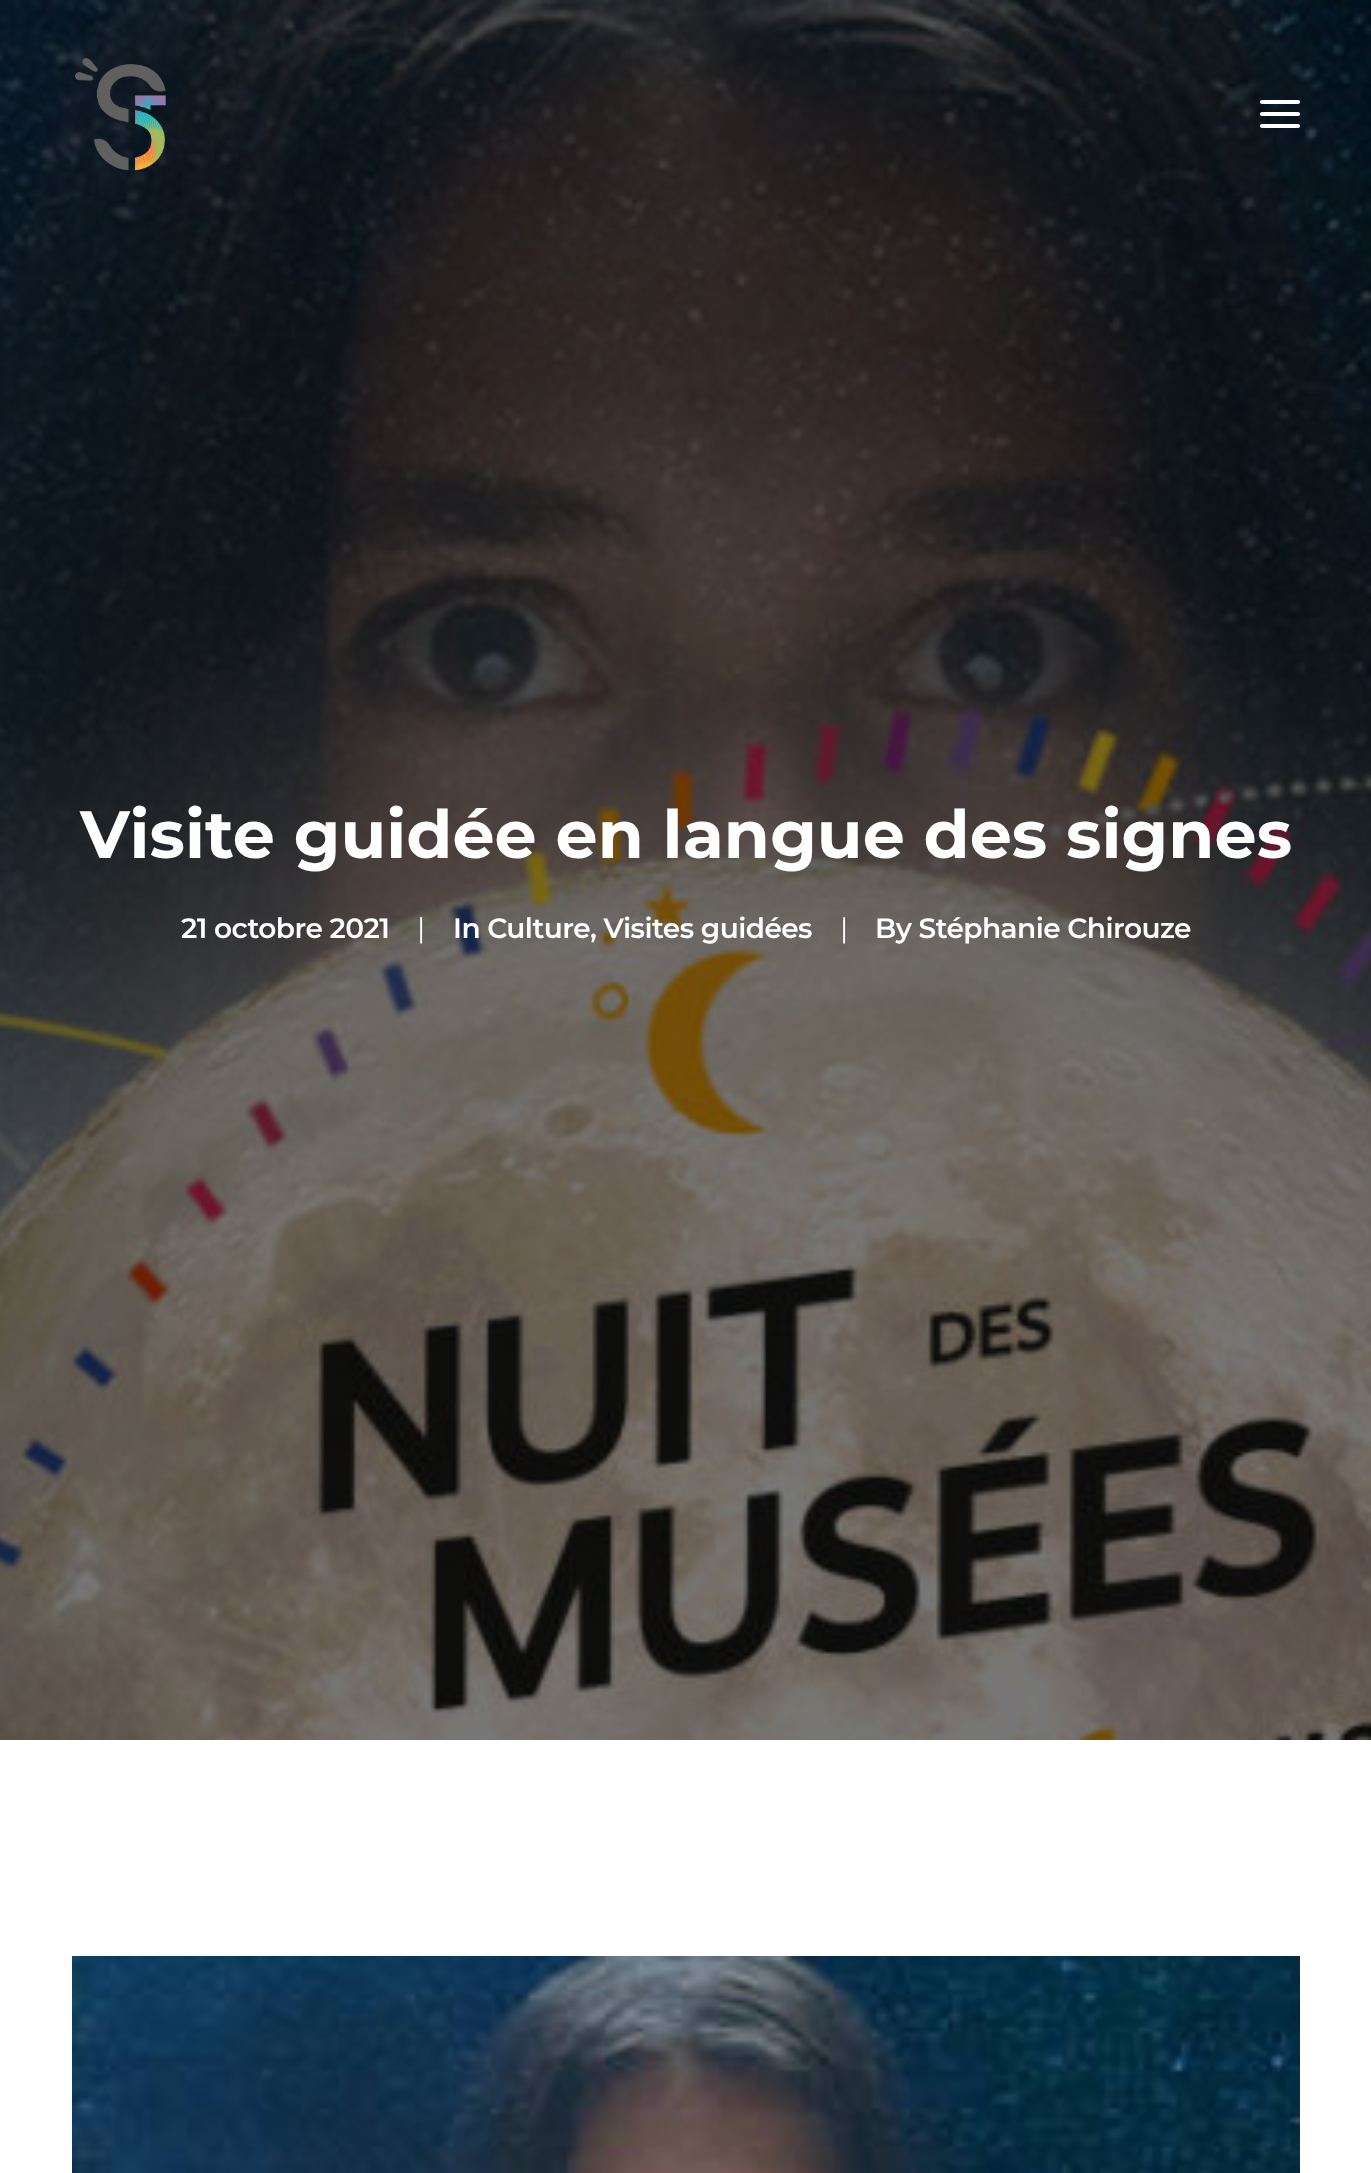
(async () => {
  const canvas = document.querySelector("canvas");
  canvas.width = 1371;
  canvas.height = 2173;
  const ctx = canvas.getContext("2d");
  ctx.miterLimit = 4;
  ctx.fontKerning = "normal";
  async function loadImage(src) {
    const img = new Image();
    img.src = src;
    await img.decode();
    return img;
  }

  ctx.fillStyle = "#ffffff";
  ctx.fillRect(0, 0, 1371, 2173);
  ctx.drawImage(await loadImage("img/2.png"), 0, 0, 1371, 1740);
  ctx.drawImage(await loadImage("img/1.png"), 75, 58, 91, 113);
  ctx.beginPath();
  ctx.roundRect(1260, 112, 40, 4, 2);
  ctx.fill();
  ctx.beginPath();
  ctx.roundRect(1260, 100, 40, 4, 2);
  ctx.fill();
  ctx.beginPath();
  ctx.roundRect(1260, 124, 40, 4, 2);
  ctx.fill();
  ctx.drawImage(await loadImage("img/3.png"), 72, 1956, 1228, 217);
  ctx.font = "bold 66.7px Montserrat";
  ctx.fillText("Visite guidée en langue des signes", 80, 858);
  ctx.letterSpacing = "-0.55px";
  ctx.font = "600 28px Montserrat";
  ctx.fillText("21 octobre 2021", 181, 938);
  ctx.font = "28px Montserrat";
  ctx.fillText("|", 417, 938);
  ctx.font = "600 28px Montserrat";
  ctx.fillText("In Culture, Visites guidées", 453, 938);
  ctx.font = "28px Montserrat";
  ctx.fillText("|", 840, 938);
  ctx.font = "600 28px Montserrat";
  ctx.fillText("By Stéphanie Chirouze", 875, 938);
})();
